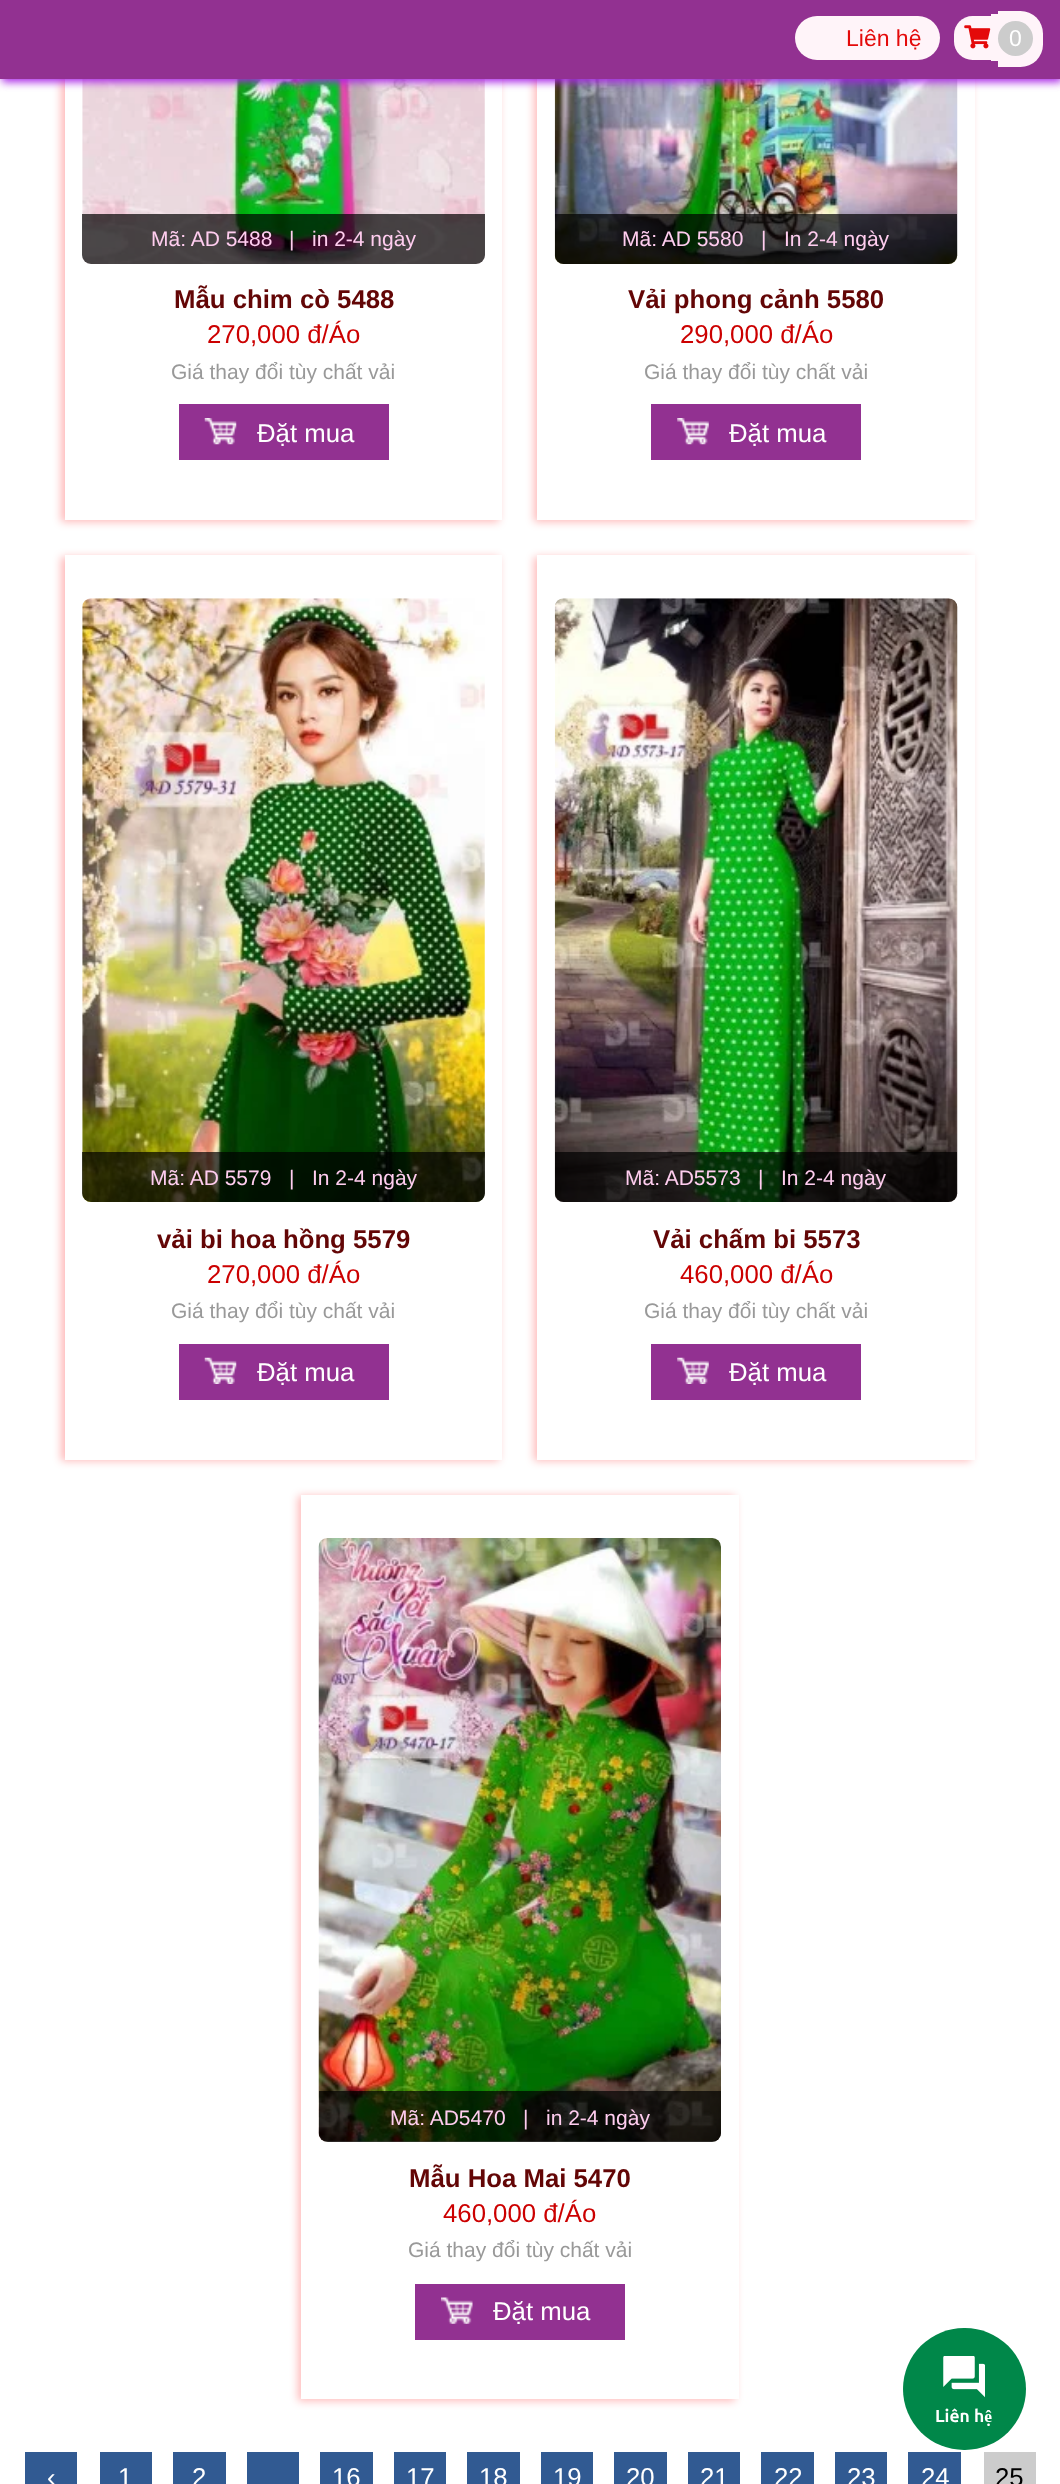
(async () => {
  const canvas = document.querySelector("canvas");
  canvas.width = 1060;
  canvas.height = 2484;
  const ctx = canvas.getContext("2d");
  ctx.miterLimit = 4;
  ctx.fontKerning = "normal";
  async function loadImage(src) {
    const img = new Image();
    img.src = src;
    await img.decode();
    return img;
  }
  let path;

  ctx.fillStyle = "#ffffff";
  ctx.fillRect(0, 0, 1060, 2484);
  ctx.save();
  path = new Path2D("M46 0H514V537H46ZM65-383H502V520H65Z");
  ctx.clip(path, "evenodd");
  ctx.fillStyle = "rgba(255, 0, 0, 0.27)";
  ctx.filter = "blur(4.5px)";
  ctx.beginPath();
  ctx.rect(61, -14, 438, 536);
  ctx.fill();
  ctx.filter = "none";
  ctx.restore();
  ctx.drawImage(await loadImage("img/2.png"), 82, 79, 403, 185);
  ctx.save();
  path = new Path2D("M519 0H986V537H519ZM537-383H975V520H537Z");
  ctx.clip(path, "evenodd");
  ctx.fillStyle = "rgba(255, 0, 0, 0.27)";
  ctx.filter = "blur(4.5px)";
  ctx.beginPath();
  ctx.rect(534, -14, 437, 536);
  ctx.fill();
  ctx.filter = "none";
  ctx.restore();
  ctx.drawImage(await loadImage("img/4.png"), 554, 79, 404, 185);
  ctx.fillStyle = "#a821e6";
  ctx.filter = "blur(4.5px)";
  ctx.beginPath();
  ctx.rect(2, 4, 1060, 78);
  ctx.fill();
  ctx.filter = "none";
  ctx.fillStyle = "#923191";
  ctx.fillRect(0, 0, 1060, 79);
  ctx.fillStyle = "#fff4f9";
  ctx.beginPath();
  ctx.roundRect(795, 16, 145, 44, 22);
  ctx.fill();
  ctx.beginPath();
  ctx.roundRect(954, 16, 37, 44, [18.5, 0, 0, 18.5]);
  ctx.fill();
  ctx.fillRect(991, 14, 7, 47);
  ctx.beginPath();
  ctx.roundRect(998, 11, 45, 56, [0, 22.5, 22.5, 0]);
  ctx.fill();
  ctx.drawImage(await loadImage("img/1.png"), 964, 25, 27, 24);
  ctx.fillStyle = "#cccccc";
  ctx.beginPath();
  ctx.arc(1015.5, 38.5, 17.5, 0, Math.PI * 2);
  ctx.fill();
  ctx.fillStyle = "rgba(0, 0, 0, 0.7)";
  ctx.beginPath();
  ctx.roundRect(82, 214, 403, 50, [0, 0, 9, 9]);
  ctx.fill();
  ctx.fillStyle = "#923191";
  ctx.fillRect(179, 404, 210, 56);
  ctx.drawImage(await loadImage("img/3.png"), 204, 418, 33, 27);
  ctx.fillStyle = "rgba(0, 0, 0, 0.7)";
  ctx.beginPath();
  ctx.roundRect(555, 214, 402, 50, [0, 0, 9, 9]);
  ctx.fill();
  ctx.fillStyle = "#923191";
  ctx.fillRect(651, 404, 210, 56);
  ctx.drawImage(await loadImage("img/5.png"), 677, 418, 32, 27);
  ctx.save();
  path = new Path2D("M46 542H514V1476H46ZM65 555H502V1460H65Z");
  ctx.clip(path, "evenodd");
  ctx.fillStyle = "rgba(255, 0, 0, 0.27)";
  ctx.filter = "blur(4.5px)";
  ctx.beginPath();
  ctx.rect(61, 557, 438, 904);
  ctx.fill();
  ctx.filter = "none";
  ctx.restore();
  ctx.drawImage(await loadImage("img/6.png"), 82, 598, 403, 604);
  ctx.fillStyle = "rgba(0, 0, 0, 0.7)";
  ctx.beginPath();
  ctx.roundRect(82, 1152, 403, 50, [0, 0, 9, 9]);
  ctx.fill();
  ctx.fillStyle = "#923191";
  ctx.fillRect(179, 1344, 210, 56);
  ctx.drawImage(await loadImage("img/7.png"), 204, 1357, 33, 27);
  ctx.save();
  path = new Path2D("M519 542H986V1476H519ZM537 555H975V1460H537Z");
  ctx.clip(path, "evenodd");
  ctx.fillStyle = "rgba(255, 0, 0, 0.27)";
  ctx.filter = "blur(4.5px)";
  ctx.beginPath();
  ctx.rect(534, 557, 437, 904);
  ctx.fill();
  ctx.filter = "none";
  ctx.restore();
  ctx.drawImage(await loadImage("img/8.png"), 554, 598, 404, 604);
  ctx.fillStyle = "rgba(0, 0, 0, 0.7)";
  ctx.beginPath();
  ctx.roundRect(555, 1152, 402, 50, [0, 0, 9, 9]);
  ctx.fill();
  ctx.fillStyle = "#923191";
  ctx.fillRect(651, 1344, 210, 56);
  ctx.drawImage(await loadImage("img/9.png"), 677, 1357, 32, 27);
  ctx.save();
  path = new Path2D("M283 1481H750V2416H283ZM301 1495H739V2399H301Z");
  ctx.clip(path, "evenodd");
  ctx.fillStyle = "rgba(255, 0, 0, 0.27)";
  ctx.filter = "blur(4.5px)";
  ctx.beginPath();
  ctx.rect(298, 1496, 437, 905);
  ctx.fill();
  ctx.filter = "none";
  ctx.restore();
  ctx.drawImage(await loadImage("img/10.png"), 318, 1538, 403, 604);
  ctx.fillStyle = "rgba(0, 0, 0, 0.7)";
  ctx.beginPath();
  ctx.roundRect(319, 2091, 402, 51, [0, 0, 9, 9]);
  ctx.fill();
  ctx.fillStyle = "#923191";
  ctx.fillRect(415, 2284, 210, 56);
  ctx.drawImage(await loadImage("img/11.png"), 441, 2297, 32, 27);
  for (const [x, y, w, h, color] of [
    [25, 2452, 52, 32, "#315a92"],
    [100, 2452, 52, 32, "#315a92"],
    [173, 2452, 53, 32, "#315a92"],
    [247, 2452, 52, 32, "#315a92"],
    [320, 2452, 53, 32, "#315a92"],
    [394, 2452, 52, 32, "#315a92"],
    [467, 2452, 53, 32, "#315a92"],
    [541, 2452, 52, 32, "#315a92"],
    [614, 2452, 53, 32, "#315a92"],
    [688, 2452, 52, 32, "#315a92"],
    [761, 2452, 53, 32, "#315a92"],
    [835, 2452, 52, 32, "#315a92"],
    [908, 2452, 53, 32, "#315a92"],
    [984, 2452, 52, 32, "#cccccc"],
  ]) {
    ctx.fillStyle = color;
    ctx.fillRect(x, y, w, h);
  }
  ctx.fillStyle = "#008749";
  ctx.beginPath();
  ctx.roundRect(903, 2328, 123, 122, 61);
  ctx.fill();
  ctx.drawImage(await loadImage("img/12.png"), 943, 2356, 42, 42);
  ctx.font = "23px Liberation Sans";
  ctx.fillStyle = "#e40a0a";
  ctx.fillText("Liên hệ", 846, 46);
  ctx.fillStyle = "#ffffff";
  ctx.fillText("0", 1009, 46);
  ctx.font = "21px Liberation Sans";
  ctx.fillStyle = "#ffcdef";
  for (const [text, x, y] of [
    ["Mã: AD 5488", 151, 246],
    ["|", 289, 246],
    ["in 2-4 ngày", 312, 246],
  ]) {
    ctx.fillText(text, x, y);
  }
  ctx.font = "bold 25.75px Liberation Sans";
  ctx.fillStyle = "#630606";
  ctx.fillText("Mẫu chim cò 5488", 174, 308);
  ctx.font = "25.75px Liberation Sans";
  ctx.fillStyle = "#cc0000";
  ctx.fillText("270,000 đ/Áo", 207, 343);
  ctx.font = "21px Liberation Sans";
  ctx.fillStyle = "#999999";
  ctx.fillText("Giá thay đổi tùy chất vải", 171, 379);
  ctx.font = "25.75px Liberation Sans";
  ctx.fillStyle = "#ffffff";
  ctx.fillText("Đặt mua", 257, 442);
  ctx.font = "21px Liberation Sans";
  ctx.fillStyle = "#ffcdef";
  for (const [text, x, y] of [
    ["Mã: AD 5580", 622, 246],
    ["|", 761, 246],
    ["In 2-4 ngày", 784, 246],
  ]) {
    ctx.fillText(text, x, y);
  }
  ctx.font = "bold 25.75px Liberation Sans";
  ctx.fillStyle = "#630606";
  ctx.fillText("Vải phong cảnh 5580", 628, 308);
  ctx.font = "25.75px Liberation Sans";
  ctx.fillStyle = "#cc0000";
  ctx.fillText("290,000 đ/Áo", 680, 343);
  ctx.font = "21px Liberation Sans";
  ctx.fillStyle = "#999999";
  ctx.fillText("Giá thay đổi tùy chất vải", 644, 379);
  ctx.font = "25.75px Liberation Sans";
  ctx.fillStyle = "#ffffff";
  ctx.fillText("Đặt mua", 729, 442);
  ctx.font = "21px Liberation Sans";
  ctx.fillStyle = "#ffcdef";
  for (const [text, x, y] of [
    ["Mã: AD 5579", 150, 1185],
    ["|", 289, 1185],
    ["In 2-4 ngày", 312, 1185],
  ]) {
    ctx.fillText(text, x, y);
  }
  ctx.font = "bold 25.75px Liberation Sans";
  ctx.fillStyle = "#630606";
  ctx.fillText("vải bi hoa hồng 5579", 157, 1248);
  ctx.font = "25.75px Liberation Sans";
  ctx.fillStyle = "#cc0000";
  ctx.fillText("270,000 đ/Áo", 207, 1283);
  ctx.font = "21px Liberation Sans";
  ctx.fillStyle = "#999999";
  ctx.fillText("Giá thay đổi tùy chất vải", 171, 1318);
  ctx.font = "25.75px Liberation Sans";
  ctx.fillStyle = "#ffffff";
  ctx.fillText("Đặt mua", 257, 1381);
  ctx.font = "21px Liberation Sans";
  ctx.fillStyle = "#ffcdef";
  for (const [text, x, y] of [
    ["Mã: AD5573", 625, 1185],
    ["|", 758, 1185],
    ["In 2-4 ngày", 781, 1185],
  ]) {
    ctx.fillText(text, x, y);
  }
  ctx.font = "bold 25.75px Liberation Sans";
  ctx.fillStyle = "#630606";
  ctx.fillText("Vải chấm bi 5573", 653, 1248);
  ctx.font = "25.75px Liberation Sans";
  ctx.fillStyle = "#cc0000";
  ctx.fillText("460,000 đ/Áo", 680, 1283);
  ctx.font = "21px Liberation Sans";
  ctx.fillStyle = "#999999";
  ctx.fillText("Giá thay đổi tùy chất vải", 644, 1318);
  ctx.font = "25.75px Liberation Sans";
  ctx.fillStyle = "#ffffff";
  ctx.fillText("Đặt mua", 729, 1381);
  ctx.font = "21px Liberation Sans";
  ctx.fillStyle = "#ffcdef";
  for (const [text, x, y] of [
    ["Mã: AD5470", 390, 2125],
    ["|", 523, 2125],
    ["in 2-4 ngày", 546, 2125],
  ]) {
    ctx.fillText(text, x, y);
  }
  ctx.font = "bold 25.75px Liberation Sans";
  ctx.fillStyle = "#630606";
  ctx.fillText("Mẫu Hoa Mai 5470", 409, 2187);
  ctx.font = "25.75px Liberation Sans";
  ctx.fillStyle = "#cc0000";
  ctx.fillText("460,000 đ/Áo", 443, 2222);
  ctx.font = "21px Liberation Sans";
  ctx.fillStyle = "#999999";
  ctx.fillText("Giá thay đổi tùy chất vải", 408, 2257);
  ctx.font = "25.75px Liberation Sans";
  ctx.fillStyle = "#ffffff";
  for (const [text, x, y] of [
    ["Đặt mua", 493, 2320],
    ["‹", 47, 2486],
    ["1", 118, 2486],
    ["2", 192, 2486],
    ["16", 332, 2486],
    ["17", 406, 2486],
    ["18", 479, 2486],
    ["19", 553, 2486],
    ["20", 626, 2486],
    ["21", 700, 2486],
    ["22", 774, 2486],
    ["23", 847, 2486],
    ["24", 921, 2486],
  ]) {
    ctx.fillText(text, x, y);
  }
  ctx.fillStyle = "#000000";
  ctx.fillText("25", 995, 2486);
  ctx.font = "bold 17.5px Ubuntu";
  ctx.fillStyle = "#ffffff";
  ctx.fillText("Liên hệ", 935, 2422);
})();
